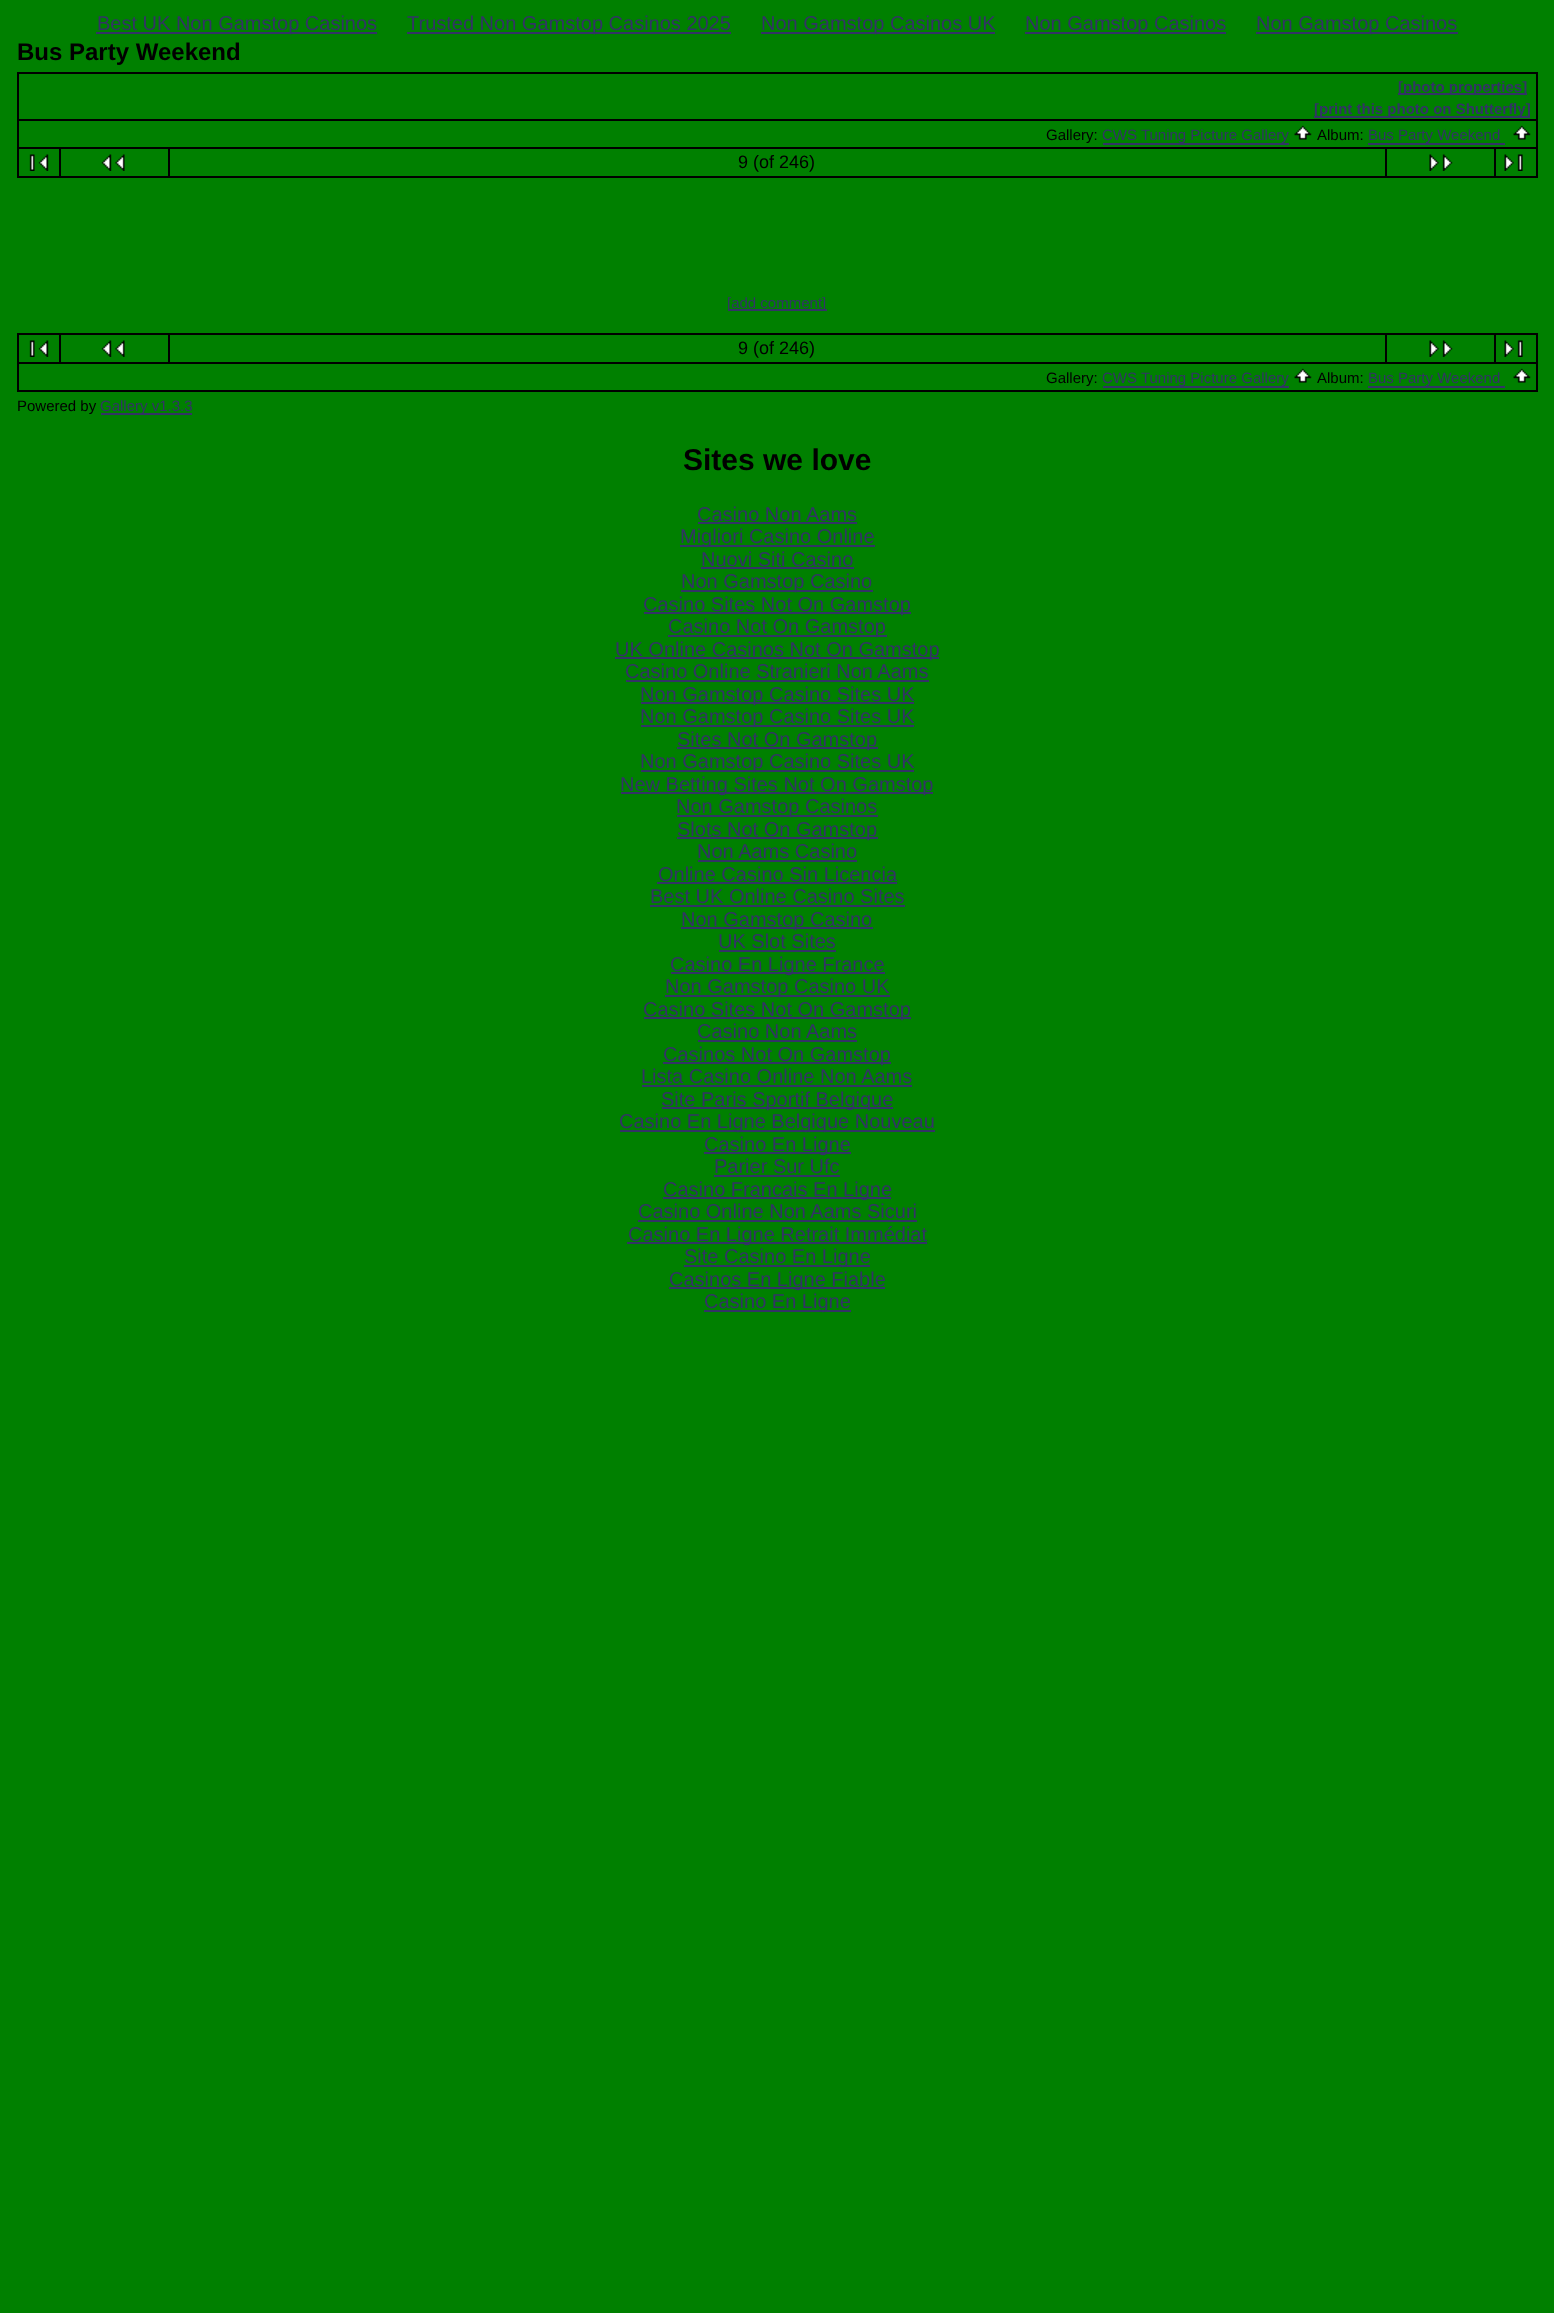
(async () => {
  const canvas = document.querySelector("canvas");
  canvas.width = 1554;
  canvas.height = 2313;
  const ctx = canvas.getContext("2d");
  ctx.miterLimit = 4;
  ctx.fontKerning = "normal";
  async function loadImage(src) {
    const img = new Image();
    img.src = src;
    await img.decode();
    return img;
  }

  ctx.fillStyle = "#008000";
  ctx.fillRect(0, 0, 1554, 2313);
  for (const [x, y, w, h, color] of [
    [96, 32, 281, 2, "#333366"],
    [407, 32, 324, 2, "#333366"],
    [761, 32, 234, 2, "#333366"],
    [1025, 32, 201, 2, "#333366"],
    [1256, 32, 202, 2, "#333366"],
    [17, 72, 1521, 2, "#000000"],
    [17, 74, 2, 45, "#000000"],
    [1398, 93, 129, 2, "#333366"],
    [1314, 116, 216, 2, "#333366"],
    [1536, 74, 2, 45, "#000000"],
    [17, 119, 1521, 2, "#000000"],
    [17, 120, 2, 27, "#000000"],
    [1103, 143, 186, 2, "#333366"],
  ]) {
    ctx.fillStyle = color;
    ctx.fillRect(x, y, w, h);
  }
  ctx.drawImage(await loadImage("img/1.png"), 1294, 125, 18, 15);
  ctx.fillRect(1368, 143, 137, 2);
  ctx.drawImage(await loadImage("img/2.png"), 1513, 125, 18, 15);
  for (const [x, y, w, h, color] of [
    [1536, 120, 2, 27, "#000000"],
    [17, 147, 1521, 2, "#000000"],
    [17, 149, 2, 27, "#000000"],
  ]) {
    ctx.fillStyle = color;
    ctx.fillRect(x, y, w, h);
  }
  ctx.drawImage(await loadImage("img/3.png"), 29, 154, 20, 17);
  ctx.fillRect(59, 149, 2, 27);
  ctx.drawImage(await loadImage("img/4.png"), 101, 154, 24, 17);
  ctx.fillRect(168, 149, 2, 27);
  ctx.fillRect(1385, 149, 2, 27);
  ctx.drawImage(await loadImage("img/5.png"), 1429, 154, 24, 17);
  ctx.fillRect(1494, 149, 2, 27);
  ctx.drawImage(await loadImage("img/6.png"), 1504, 154, 19, 17);
  for (const [x, y, w, h, color] of [
    [1536, 149, 2, 27, "#000000"],
    [17, 176, 1521, 2, "#000000"],
    [728, 309, 99, 2, "#333366"],
    [17, 333, 1521, 2, "#000000"],
    [17, 335, 2, 27, "#000000"],
  ]) {
    ctx.fillStyle = color;
    ctx.fillRect(x, y, w, h);
  }
  ctx.drawImage(await loadImage("img/3.png"), 29, 340, 20, 17);
  ctx.fillRect(59, 335, 2, 27);
  ctx.drawImage(await loadImage("img/4.png"), 101, 340, 24, 17);
  ctx.fillRect(168, 335, 2, 27);
  ctx.fillRect(1385, 335, 2, 27);
  ctx.drawImage(await loadImage("img/5.png"), 1429, 340, 24, 17);
  ctx.fillRect(1494, 335, 2, 27);
  ctx.drawImage(await loadImage("img/6.png"), 1504, 340, 19, 17);
  for (const [x, y, w, h, color] of [
    [1536, 335, 2, 27, "#000000"],
    [17, 362, 1521, 2, "#000000"],
    [17, 363, 2, 27, "#000000"],
    [1103, 386, 186, 2, "#333366"],
  ]) {
    ctx.fillStyle = color;
    ctx.fillRect(x, y, w, h);
  }
  ctx.drawImage(await loadImage("img/1.png"), 1294, 368, 18, 15);
  ctx.fillRect(1368, 386, 137, 2);
  ctx.drawImage(await loadImage("img/2.png"), 1513, 368, 18, 15);
  for (const [x, y, w, h, color] of [
    [1536, 363, 2, 27, "#000000"],
    [17, 390, 1521, 2, "#000000"],
    [101, 413, 91, 2, "#333366"],
    [698, 522, 159, 2, "#333366"],
    [680, 545, 195, 2, "#333366"],
    [701, 567, 153, 2, "#333366"],
    [681, 590, 192, 2, "#333366"],
    [644, 612, 267, 2, "#333366"],
    [668, 635, 219, 2, "#333366"],
    [615, 657, 324, 2, "#333366"],
    [626, 680, 303, 2, "#333366"],
    [641, 702, 273, 2, "#333366"],
    [641, 725, 273, 2, "#333366"],
    [677, 747, 201, 2, "#333366"],
    [641, 770, 273, 2, "#333366"],
    [621, 792, 312, 2, "#333366"],
    [677, 815, 201, 2, "#333366"],
    [677, 837, 201, 2, "#333366"],
    [698, 860, 159, 2, "#333366"],
    [657, 882, 240, 2, "#333366"],
    [650, 905, 255, 2, "#333366"],
    [681, 927, 192, 2, "#333366"],
    [719, 950, 117, 2, "#333366"],
    [671, 972, 214, 2, "#333366"],
    [665, 995, 225, 2, "#333366"],
    [644, 1017, 267, 2, "#333366"],
    [698, 1040, 159, 2, "#333366"],
    [663, 1062, 228, 2, "#333366"],
    [642, 1085, 270, 2, "#333366"],
    [662, 1107, 231, 2, "#333366"],
    [620, 1130, 315, 2, "#333366"],
    [704, 1152, 147, 2, "#333366"],
    [714, 1175, 126, 2, "#333366"],
    [663, 1197, 228, 2, "#333366"],
    [638, 1220, 279, 2, "#333366"],
    [627, 1242, 300, 2, "#333366"],
    [684, 1265, 186, 2, "#333366"],
    [669, 1287, 216, 2, "#333366"],
    [704, 1310, 147, 2, "#333366"],
  ]) {
    ctx.fillStyle = color;
    ctx.fillRect(x, y, w, h);
  }
  ctx.font = "20px Liberation Sans";
  for (const [text, x, y] of [
    ["Best UK Non Gamstop Casinos", 97, 30],
    ["Trusted Non Gamstop Casinos 2025", 407, 30],
    ["Non Gamstop Casinos UK", 761, 30],
    ["Non Gamstop Casinos", 1025, 30],
    ["Non Gamstop Casinos", 1256, 30],
  ]) {
    ctx.fillText(text, x, y);
  }
  ctx.font = "bold 24px Liberation Sans";
  ctx.fillStyle = "#000000";
  ctx.fillText("Bus Party Weekend", 17, 60);
  ctx.font = "bold 15px Liberation Sans";
  ctx.fillStyle = "#333366";
  ctx.fillText("[photo properties]", 1398, 92);
  ctx.fillText("[print this photo on Shutterfly]", 1314, 114);
  ctx.font = "15px Liberation Sans";
  ctx.fillStyle = "#000000";
  ctx.fillText("Gallery:", 1046, 140);
  ctx.fillStyle = "#333366";
  ctx.fillText("CWS Tuning Picture Gallery", 1102, 140);
  ctx.fillStyle = "#000000";
  ctx.fillText("Album:", 1317, 140);
  ctx.fillStyle = "#333366";
  ctx.fillText("Bus Party Weekend", 1368, 140);
  ctx.font = "18px Liberation Sans";
  ctx.fillStyle = "#000000";
  ctx.fillText("9 (of 246)", 738, 168);
  ctx.font = "15px Liberation Sans";
  ctx.fillStyle = "#333366";
  ctx.fillText("[add comment]", 727, 308);
  ctx.font = "18px Liberation Sans";
  ctx.fillStyle = "#000000";
  ctx.fillText("9 (of 246)", 738, 354);
  ctx.font = "15px Liberation Sans";
  ctx.fillText("Gallery:", 1046, 383);
  ctx.fillStyle = "#333366";
  ctx.fillText("CWS Tuning Picture Gallery", 1102, 383);
  ctx.fillStyle = "#000000";
  ctx.fillText("Album:", 1317, 383);
  ctx.fillStyle = "#333366";
  ctx.fillText("Bus Party Weekend", 1368, 383);
  ctx.fillStyle = "#000000";
  ctx.fillText("Powered by", 17, 411);
  ctx.fillStyle = "#333366";
  ctx.fillText("Gallery v1.3.3", 100, 411);
  ctx.font = "bold 30px Liberation Sans";
  ctx.fillStyle = "#000000";
  ctx.fillText("Sites we love", 683, 470);
  ctx.font = "20px Liberation Sans";
  ctx.fillStyle = "#333366";
  for (const [text, x, y] of [
    ["Casino Non Aams", 697, 521],
    ["Migliori Casino Online", 680, 543],
    ["Nuovi Siti Casino", 701, 566],
    ["Non Gamstop Casino", 681, 588],
    ["Casino Sites Not On Gamstop", 643, 611],
    ["Casino Not On Gamstop", 668, 633],
    ["UK Online Casinos Not On Gamstop", 615, 656],
    ["Casino Online Stranieri Non Aams", 625, 678],
    ["Non Gamstop Casino Sites UK", 640, 701],
    ["Non Gamstop Casino Sites UK", 640, 723],
    ["Sites Not On Gamstop", 677, 746],
    ["Non Gamstop Casino Sites UK", 640, 768],
    ["New Betting Sites Not On Gamstop", 620, 791],
    ["Non Gamstop Casinos", 676, 813],
    ["Slots Not On Gamstop", 677, 836],
    ["Non Aams Casino", 697, 858],
    ["Online Casino Sin Licencia", 658, 881],
    ["Best UK Online Casino Sites", 650, 903],
    ["Non Gamstop Casino", 681, 926],
    ["UK Slot Sites", 718, 948],
    ["Casino En Ligne France", 670, 971],
    ["Non Gamstop Casino UK", 665, 993],
    ["Casino Sites Not On Gamstop", 643, 1016],
    ["Casino Non Aams", 697, 1038],
    ["Casinos Not On Gamstop", 663, 1061],
    ["Lista Casino Online Non Aams", 641, 1083],
    ["Site Paris Sportif Belgique", 661, 1106],
    ["Casino En Ligne Belgique Nouveau", 619, 1128],
    ["Casino En Ligne", 704, 1151],
    ["Parier Sur Ufc", 714, 1173],
    ["Casino Francais En Ligne", 663, 1196],
    ["Casino Online Non Aams Sicuri", 638, 1218],
    ["Casino En Ligne Retrait Immédiat", 628, 1241],
    ["Site Casino En Ligne", 684, 1263],
    ["Casinos En Ligne Fiable", 669, 1286],
    ["Casino En Ligne", 704, 1308],
  ]) {
    ctx.fillText(text, x, y);
  }
})();
